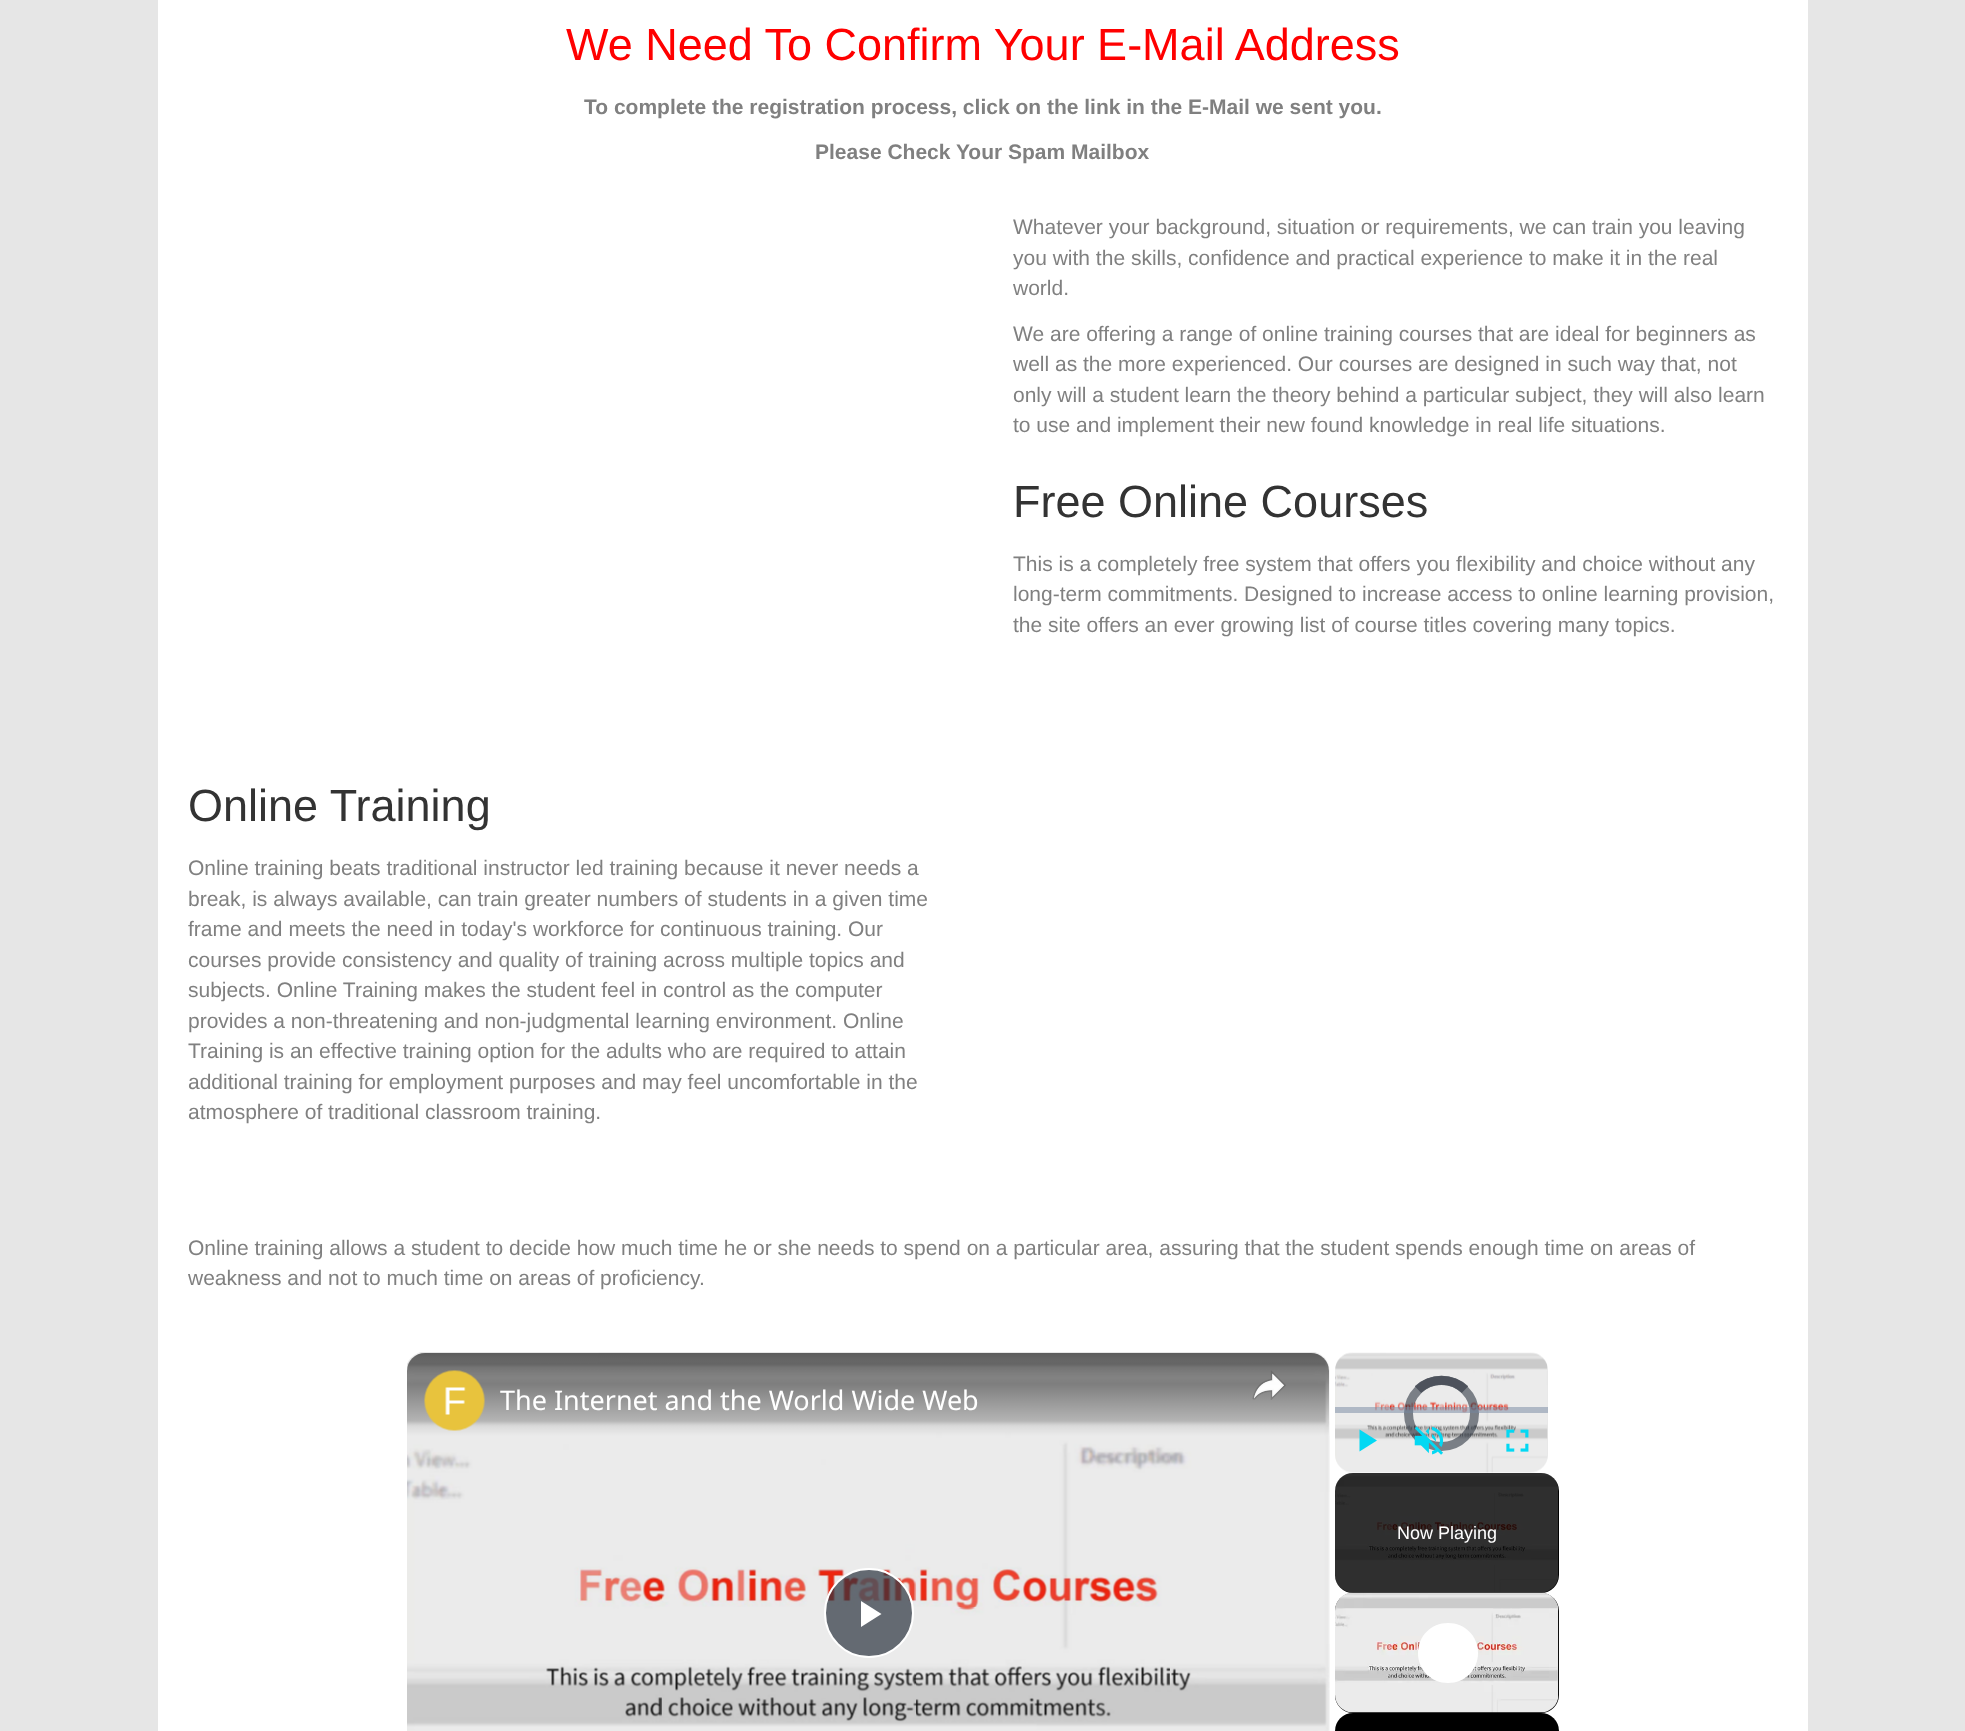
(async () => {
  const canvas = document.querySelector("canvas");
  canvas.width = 1965;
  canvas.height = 1731;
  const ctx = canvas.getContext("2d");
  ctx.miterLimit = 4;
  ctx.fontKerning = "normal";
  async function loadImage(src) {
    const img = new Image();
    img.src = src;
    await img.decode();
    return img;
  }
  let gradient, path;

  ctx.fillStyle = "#e6e6e6";
  ctx.fillRect(0, 0, 1965, 1731);
  ctx.fillStyle = "#ffffff";
  ctx.fillRect(158, 0, 1650, 1731);
  ctx.drawImage(await loadImage("img/1.png"), 407, 1352, 923, 379);
  ctx.drawImage(await loadImage("img/2.png"), 407, 1352, 923, 379);
  ctx.fillStyle = "rgba(43, 51, 63, 0.7)";
  ctx.beginPath();
  ctx.arc(869, 1613, 44, 0, Math.PI * 2);
  ctx.fill();
  ctx.strokeStyle = "#ffffff";
  ctx.lineWidth = 2;
  ctx.stroke();
  ctx.fillStyle = "#ffffff";
  path = new Path2D("M861 1601V1627L881.5 1614Z");
  ctx.fill(path);
  gradient = ctx.createLinearGradient(868, 1353, 868, 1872);
  gradient.addColorStop(0, "rgba(0, 0, 0, 0.6)");
  gradient.addColorStop(0.16, "rgba(0, 0, 0, 0)");
  gradient.addColorStop(0.84, "rgba(0, 0, 0, 0)");
  gradient.addColorStop(1, "rgba(0, 0, 0, 0.8)");
  ctx.fillStyle = gradient;
  ctx.beginPath();
  ctx.roundRect(407, 1353, 922, 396, 18);
  ctx.fill();
  ctx.drawImage(await loadImage("img/3.png"), 424, 1370, 61, 61);
  ctx.drawImage(await loadImage("img/4.png"), 1252, 1370, 34, 30);
  ctx.drawImage(await loadImage("img/5.png"), 1335, 1352, 213, 121);
  ctx.beginPath();
  ctx.arc(1441.5, 1413.5, 33, 0, Math.PI * 2);
  ctx.strokeStyle = "rgba(43, 51, 63, 0.59)";
  ctx.lineWidth = 9;
  ctx.stroke();
  path = new Path2D("M1418 1389.5C1431 1377 1452 1377 1465 1389.5");
  ctx.strokeStyle = "rgba(72, 79, 89, 0.7)";
  ctx.stroke(path);
  path = new Path2D("M1418 1389.5C1431 1377 1452 1377 1465 1389.5");
  ctx.stroke(path);
  ctx.fillStyle = "rgba(115, 133, 159, 0.5)";
  ctx.fillRect(1335, 1407, 213, 6);
  ctx.fillStyle = "#03d8f3";
  path = new Path2D("M1359.5 1429.5V1451.5L1377 1440.5Z");
  ctx.fill(path);
  ctx.drawImage(await loadImage("img/6.png"), 1414, 1426, 30, 29);
  ctx.drawImage(await loadImage("img/7.png"), 1506, 1429, 23, 23);
  ctx.fillStyle = "#000000";
  ctx.beginPath();
  ctx.roundRect(1335, 1473, 224, 120, 18);
  ctx.fill();
  ctx.drawImage(await loadImage("img/8.png"), 1335, 1473, 223, 120);
  ctx.beginPath();
  ctx.roundRect(1335, 1593, 224, 120, 18);
  ctx.fill();
  ctx.drawImage(await loadImage("img/9.png"), 1335, 1592, 224, 121);
  ctx.fillStyle = "#ffffff";
  path = new Path2D("M1448 1623C1431 1623 1418 1636 1418 1653C1418 1670 1431 1683 1448 1683C1465 1683 1478 1670 1478 1653C1478 1636 1465 1623 1448 1623Z");
  ctx.fill(path);
  ctx.fillStyle = "#000000";
  ctx.beginPath();
  ctx.roundRect(1335, 1713, 224, 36, 18);
  ctx.fill();
  ctx.font = "45px Liberation Sans";
  ctx.fillStyle = "#ff0000";
  ctx.fillText("We Need To Confirm Your E-Mail Address", 566, 60);
  ctx.font = "bold 21px Liberation Sans";
  ctx.fillStyle = "#808080";
  ctx.fillText("To complete the registration process, click on the link in the E-Mail we sent you.", 584, 114);
  ctx.fillText("Please Check Your Spam Mailbox", 815, 159);
  ctx.font = "21px Liberation Sans";
  for (const [text, x, y] of [
    ["Whatever your background, situation or requirements, we can train you leaving", 1013, 234],
    ["you with the skills, confidence and practical experience to make it in the real", 1013, 265],
    ["world.", 1013, 295],
    ["We are offering a range of online training courses that are ideal for beginners as", 1013, 341],
    ["well as the more experienced. Our courses are designed in such way that, not", 1013, 371],
    ["only will a student learn the theory behind a particular subject, they will also learn", 1013, 402],
    ["to use and implement their new found knowledge in real life situations.", 1013, 432],
  ]) {
    ctx.fillText(text, x, y);
  }
  ctx.font = "45px Liberation Sans";
  ctx.fillStyle = "#333333";
  ctx.fillText("Free Online Courses", 1013, 517);
  ctx.font = "21px Liberation Sans";
  ctx.fillStyle = "#808080";
  for (const [text, x, y] of [
    ["This is a completely free system that offers you flexibility and choice without any", 1013, 571],
    ["long-term commitments. Designed to increase access to online learning provision,", 1013, 601],
    ["the site offers an ever growing list of course titles covering many topics.", 1013, 632],
  ]) {
    ctx.fillText(text, x, y);
  }
  ctx.font = "45px Liberation Sans";
  ctx.fillStyle = "#333333";
  ctx.fillText("Online Training", 188, 821);
  ctx.font = "21px Liberation Sans";
  ctx.fillStyle = "#808080";
  for (const [text, x, y] of [
    ["Online training beats traditional instructor led training because it never needs a", 188, 875],
    ["break, is always available, can train greater numbers of students in a given time", 188, 906],
    ["frame and meets the need in today's workforce for continuous training. Our", 188, 936],
    ["courses provide consistency and quality of training across multiple topics and", 188, 967],
    ["subjects. Online Training makes the student feel in control as the computer", 188, 997],
    ["provides a non-threatening and non-judgmental learning environment. Online", 188, 1028],
    ["Training is an effective training option for the adults who are required to attain", 188, 1058],
    ["additional training for employment purposes and may feel uncomfortable in the", 188, 1089],
    ["atmosphere of traditional classroom training.", 188, 1119],
    ["Online training allows a student to decide how much time he or she needs to spend on a particular area, assuring that the student spends enough time on areas of", 188, 1255],
    ["weakness and not to much time on areas of proficiency.", 188, 1285],
  ]) {
    ctx.fillText(text, x, y);
  }
  ctx.save();
  ctx.beginPath();
  ctx.rect(500, 1380, 727, 39);
  ctx.clip();
  ctx.font = "27px Noto Sans";
  ctx.fillStyle = "#ffffff";
  ctx.fillText("The Internet and the World Wide Web", 500, 1410);
  ctx.restore();
  ctx.font = "18px Liberation Sans";
  ctx.fillStyle = "#ffffff";
  ctx.fillText("Now Playing", 1397, 1539);
})();
